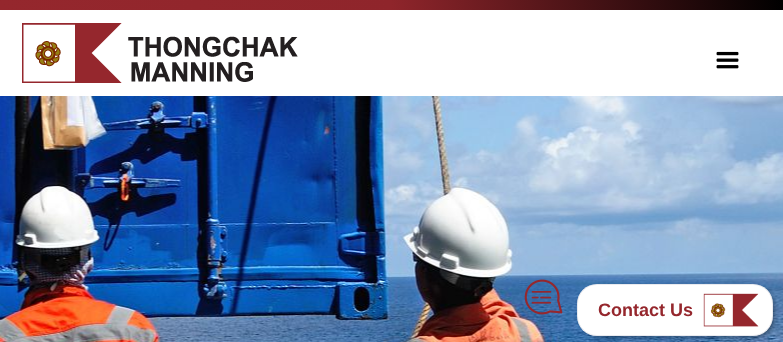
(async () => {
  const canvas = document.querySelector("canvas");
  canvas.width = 783;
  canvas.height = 342;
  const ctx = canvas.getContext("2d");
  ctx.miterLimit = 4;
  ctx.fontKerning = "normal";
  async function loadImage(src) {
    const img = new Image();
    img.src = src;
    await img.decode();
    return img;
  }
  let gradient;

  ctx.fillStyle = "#ffffff";
  ctx.fillRect(0, 0, 783, 342);
  gradient = ctx.createLinearGradient(774, -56, 9, 66);
  gradient.addColorStop(0, "#000000");
  gradient.addColorStop(0.5, "#8f252b");
  gradient.addColorStop(1, "#95272d");
  ctx.fillStyle = gradient;
  ctx.fillRect(0, 0, 783, 10);
  ctx.drawImage(await loadImage("img/1.png"), 22, 23, 276, 60);
  ctx.drawImage(await loadImage("img/2.png"), 716, 51, 23, 18);
  ctx.drawImage(await loadImage("img/3.png"), 0, 96, 783, 246);
  ctx.drawImage(await loadImage("img/4.png"), 524, 279, 39, 36);
  ctx.fillStyle = "rgba(0, 0, 0, 0.56)";
  ctx.filter = "blur(3px)";
  ctx.beginPath();
  ctx.roundRect(583, 290, 190, 46, 17);
  ctx.fill();
  ctx.filter = "none";
  ctx.fillStyle = "#ffffff";
  ctx.beginPath();
  ctx.roundRect(577, 284, 196, 52, 20);
  ctx.fill();
  ctx.beginPath();
  ctx.roundRect(577.5, 284.5, 195, 51, 19.5);
  ctx.strokeStyle = "rgba(155, 158, 184, 0.22)";
  ctx.stroke();
  ctx.drawImage(await loadImage("img/5.png"), 703, 293, 56, 34);
  ctx.font = "bold 18px Liberation Sans";
  ctx.fillStyle = "#95272d";
  ctx.fillText("Contact Us", 598, 316);
})();
